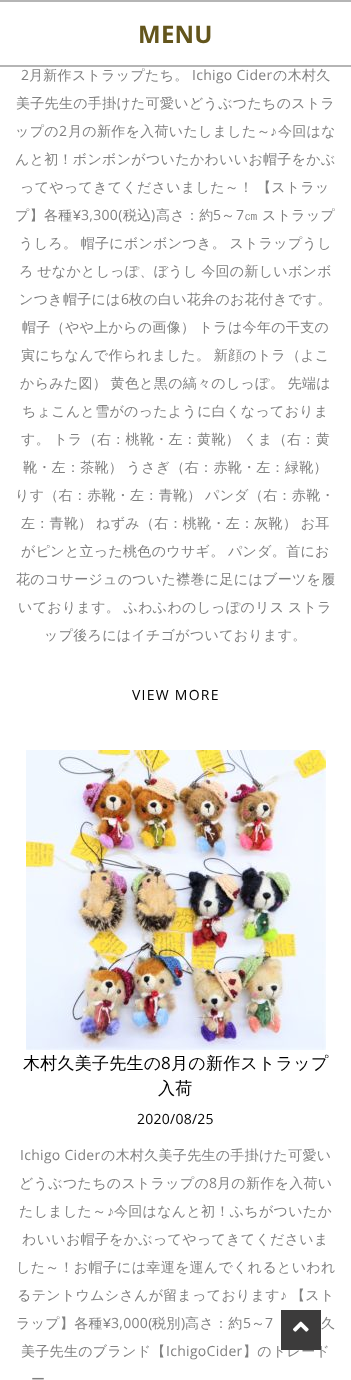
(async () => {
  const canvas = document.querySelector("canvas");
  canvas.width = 351;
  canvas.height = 1380;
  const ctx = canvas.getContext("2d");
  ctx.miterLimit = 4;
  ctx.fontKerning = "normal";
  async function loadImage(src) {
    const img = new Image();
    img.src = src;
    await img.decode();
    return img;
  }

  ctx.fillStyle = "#ffffff";
  ctx.fillRect(0, 0, 351, 1380);
  ctx.fillStyle = "#b5b5b5";
  ctx.fillRect(0, 0, 351, 2);
  ctx.fillRect(0, 65, 351, 2);
  ctx.drawImage(await loadImage("img/1.png"), 26, 750, 300, 300);
  ctx.letterSpacing = "0.25px";
  ctx.font = "bold 24px Open Sans";
  ctx.fillStyle = "#63551c";
  ctx.fillText("MENU", 138, 43);
  ctx.letterSpacing = "0.3px";
  ctx.font = "14px Open Sans";
  ctx.fillStyle = "#818181";
  ctx.fillText("2", 21, 80);
  ctx.font = "500 14px WenQuanYi Zen Hei";
  ctx.fillText("月新作ストラップたち。", 29, 80);
  ctx.font = "14px Open Sans";
  ctx.fillText("Ichigo Cider", 192, 80);
  ctx.font = "500 14px WenQuanYi Zen Hei";
  for (const [text, x, y] of [
    ["の木村久", 273, 80],
    ["美子先生の手掛けた可愛いどうぶつたちのストラ", 16, 108],
    ["ップの", 15, 136],
  ]) {
    ctx.fillText(text, x, y);
  }
  ctx.font = "14px Open Sans";
  ctx.fillText("2", 59, 136);
  ctx.font = "500 14px WenQuanYi Zen Hei";
  ctx.fillText("月の新作を入荷いたしました～", 68, 136);
  ctx.font = "14px Liberation Sans";
  ctx.fillText("♪", 270, 136);
  ctx.font = "500 14px WenQuanYi Zen Hei";
  ctx.fillText("今回はな", 278, 136);
  ctx.fillText("んと初！ボンボンがついたかわいいお帽子をかぶ", 15, 164);
  ctx.wordSpacing = "-1px";
  ctx.fillText("ってやってきてくださいました～！ 【ストラッ", 20, 192);
  ctx.wordSpacing = "0px";
  ctx.fillText("プ】各種", 15, 220);
  ctx.font = "14px Liberation Sans";
  ctx.fillText("¥", 73, 220);
  ctx.font = "14px Open Sans";
  ctx.fillText("3,300(", 81, 220);
  ctx.font = "500 14px WenQuanYi Zen Hei";
  ctx.fillText("税込 高さ：約", 123, 220);
  ctx.fillText("ストラップ", 262, 220);
  ctx.font = "14px Open Sans";
  ctx.fillText(")", 151, 220);
  ctx.fillText("5", 213, 220);
  ctx.font = "500 14px WenQuanYi Zen Hei";
  ctx.fillText("～", 221, 220);
  ctx.font = "14px Open Sans";
  ctx.fillText("7", 236, 220);
  ctx.font = "500 14px WenQuanYi Zen Hei";
  ctx.fillText("㎝", 244, 220);
  ctx.wordSpacing = "-1px";
  ctx.fillText("うしろ。 帽子にボンボンつき。 ストラップうし", 19, 248);
  ctx.fillText("ろ せなかとしっぽ、ぼうし 今回の新しいボンボ", 19, 276);
  ctx.wordSpacing = "0px";
  ctx.fillText("ンつき帽子には", 19, 304);
  ctx.font = "14px Open Sans";
  ctx.fillText("6", 121, 304);
  ctx.font = "500 14px WenQuanYi Zen Hei";
  ctx.fillText("枚の白い花弁のお花付きです。", 129, 304);
  ctx.wordSpacing = "-1px";
  for (const [text, x, y] of [
    ["帽子（やや上からの画像） トラは今年の干支の", 22, 332],
    ["寅にちなんで作られました。 新顔のトラ（よこ", 21, 360],
    ["からみた図） 黄色と黒の縞々のしっぽ。 先端は", 20, 388],
  ]) {
    ctx.fillText(text, x, y);
  }
  ctx.wordSpacing = "0px";
  ctx.fillText("ちょこんと雪がのったように白くなっておりま", 22, 416);
  ctx.wordSpacing = "-1px";
  for (const [text, x, y] of [
    ["す。 トラ（右：桃靴・左：黄靴） くま（右：黄", 21, 444],
    ["靴・左：茶靴） うさぎ（右：赤靴・左：緑靴）", 23, 472],
    ["りす（右：赤靴・左：青靴） パンダ（右：赤靴・", 15, 500],
    ["左：青靴） ねずみ（右：桃靴・左：灰靴） お耳", 21, 528],
    ["がピンと立った桃色のウサギ。 パンダ。首にお", 21, 556],
  ]) {
    ctx.fillText(text, x, y);
  }
  ctx.wordSpacing = "0px";
  ctx.fillText("花のコサージュのついた襟巻に足にはブーツを履", 16, 584);
  ctx.wordSpacing = "-1px";
  ctx.fillText("いております。 ふわふわのしっぽのリス ストラ", 18, 612);
  ctx.wordSpacing = "0px";
  ctx.fillText("ップ後ろにはイチゴがついております。", 44, 640);
  ctx.letterSpacing = "1.25px";
  ctx.font = "14px Open Sans";
  ctx.fillStyle = "#000000";
  ctx.fillText("VIEW MORE", 132, 700);
  ctx.letterSpacing = "0.25px";
  ctx.font = "500 17px WenQuanYi Zen Hei";
  ctx.fillText("木村久美子先生の", 23, 1069);
  ctx.font = "17px Open Sans";
  ctx.fillText("8", 161, 1069);
  ctx.font = "500 17px WenQuanYi Zen Hei";
  ctx.fillText("月の新作ストラップ", 171, 1069);
  ctx.fillText("入荷", 158, 1094);
  ctx.font = "14px Open Sans";
  ctx.fillText("2020/08/25", 137, 1124);
  ctx.letterSpacing = "0.3px";
  ctx.fillStyle = "#818181";
  ctx.fillText("Ichigo Cider", 20, 1160);
  ctx.font = "500 14px WenQuanYi Zen Hei";
  ctx.fillText("の木村久美子先生の手掛けた可愛い", 101, 1160);
  ctx.fillText("どうぶつたちのストラップの", 19, 1188);
  ctx.font = "14px Open Sans";
  ctx.fillText("8", 209, 1188);
  ctx.font = "500 14px WenQuanYi Zen Hei";
  ctx.fillText("月の新作を入荷い", 217, 1188);
  ctx.fillText("たしました～", 19, 1216);
  ctx.font = "14px Liberation Sans";
  ctx.fillText("♪", 107, 1216);
  ctx.font = "500 14px WenQuanYi Zen Hei";
  for (const [text, x, y] of [
    ["今回はなんと初！ふちがついたか", 114, 1216],
    ["わいいお帽子をかぶってやってきてくださいま", 22, 1244],
    ["した～！お帽子には幸運を運んでくれるといわれ", 16, 1272],
    ["るテントウムシさんが留まっております", 17, 1300],
  ]) {
    ctx.fillText(text, x, y);
  }
  ctx.font = "14px Liberation Sans";
  ctx.fillText("♪", 280, 1300);
  ctx.font = "500 14px WenQuanYi Zen Hei";
  ctx.fillText("【スト", 291, 1300);
  ctx.fillText("ラップ】各種", 16, 1328);
  ctx.font = "14px Liberation Sans";
  ctx.fillText("¥", 103, 1328);
  ctx.font = "14px Open Sans";
  ctx.fillText("3,000(", 111, 1328);
  ctx.font = "500 14px WenQuanYi Zen Hei";
  ctx.fillText("税別 高さ：約", 152, 1328);
  ctx.fillText("久", 321, 1328);
  ctx.font = "14px Open Sans";
  ctx.fillText(")", 181, 1328);
  ctx.fillText("5", 243, 1328);
  ctx.font = "500 14px WenQuanYi Zen Hei";
  ctx.fillText("～", 251, 1328);
  ctx.font = "14px Open Sans";
  ctx.fillText("7", 265, 1328);
  ctx.font = "500 14px WenQuanYi Zen Hei";
  ctx.fillText("美子先生のブランド【", 21, 1356);
  ctx.font = "14px Open Sans";
  ctx.fillText("IchigoCider", 166, 1356);
  ctx.font = "500 14px WenQuanYi Zen Hei";
  ctx.fillText("】のトレード", 243, 1356);
  ctx.wordSpacing = "-1px";
  ctx.fillText("ー", 31, 1384);
  ctx.fillStyle = "#3c3b3b";
  ctx.fillRect(281, 1310, 40, 40);
  ctx.drawImage(await loadImage("img/2.png"), 293, 1321, 16, 11);
})();
